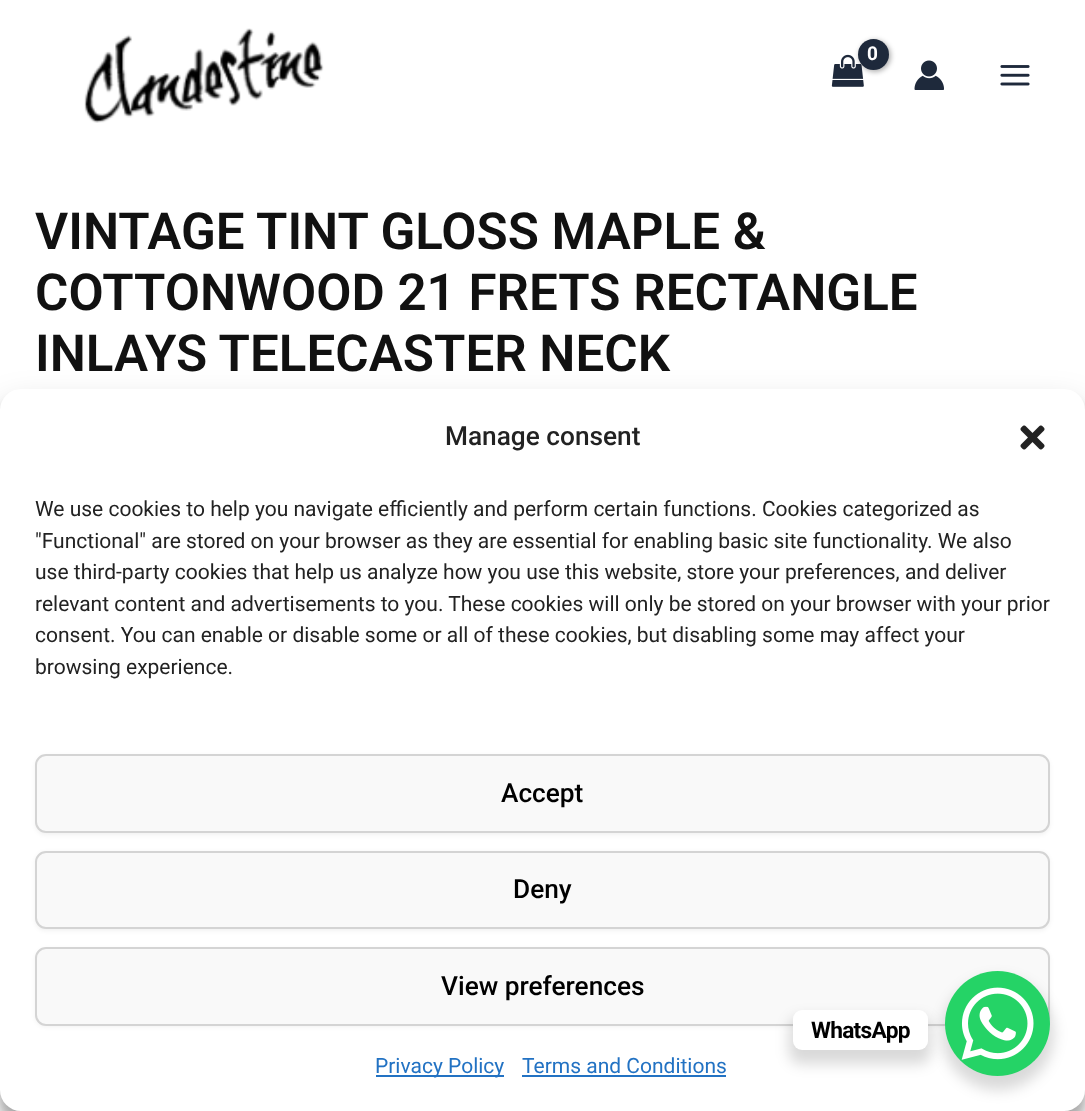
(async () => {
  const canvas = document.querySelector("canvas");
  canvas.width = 1085;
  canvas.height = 1111;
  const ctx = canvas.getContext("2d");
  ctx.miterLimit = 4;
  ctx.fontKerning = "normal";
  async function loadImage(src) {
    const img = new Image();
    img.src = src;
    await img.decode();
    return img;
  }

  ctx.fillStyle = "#ffffff";
  ctx.fillRect(0, 0, 1085, 1111);
  ctx.drawImage(await loadImage("img/1.png"), 84, 28, 240, 95);
  ctx.drawImage(await loadImage("img/2.png"), 831, 54, 33, 33);
  ctx.fillStyle = "rgba(0, 0, 0, 0.3)";
  ctx.filter = "blur(2.5px)";
  ctx.beginPath();
  ctx.roundRect(859, 40, 32, 32, 16);
  ctx.fill();
  ctx.filter = "none";
  ctx.fillStyle = "#1e293b";
  ctx.beginPath();
  ctx.arc(873.5, 54.5, 15.5, 0, Math.PI * 2);
  ctx.fill();
  ctx.drawImage(await loadImage("img/3.png"), 914, 60, 30, 30);
  ctx.drawImage(await loadImage("img/4.png"), 1000, 65, 30, 21);
  ctx.fillStyle = "rgba(0, 0, 0, 0.23)";
  ctx.filter = "blur(5px)";
  ctx.beginPath();
  ctx.roundRect(0, 399, 1085, 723, 21);
  ctx.fill();
  ctx.filter = "none";
  ctx.fillStyle = "rgba(0, 0, 0, 0.19)";
  ctx.filter = "blur(17.5px)";
  ctx.beginPath();
  ctx.roundRect(0, 406, 1085, 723, 21);
  ctx.fill();
  ctx.filter = "none";
  ctx.fillStyle = "#ffffff";
  ctx.beginPath();
  ctx.roundRect(0, 389, 1085, 722, 21);
  ctx.fill();
  ctx.drawImage(await loadImage("img/5.png"), 1020, 425, 25, 25);
  ctx.fillStyle = "rgba(0, 0, 0, 0.05)";
  ctx.filter = "blur(2px)";
  ctx.beginPath();
  ctx.roundRect(35, 756, 1015, 79, 11);
  ctx.fill();
  ctx.filter = "none";
  ctx.fillStyle = "#f9f9f9";
  ctx.beginPath();
  ctx.roundRect(36, 755, 1013, 77, 10);
  ctx.fill();
  ctx.strokeStyle = "#d4d4d4";
  ctx.lineWidth = 2;
  ctx.stroke();
  ctx.fillStyle = "rgba(0, 0, 0, 0.05)";
  ctx.filter = "blur(2px)";
  ctx.beginPath();
  ctx.roundRect(35, 852, 1015, 79, 11);
  ctx.fill();
  ctx.filter = "none";
  ctx.fillStyle = "#f9f9f9";
  ctx.beginPath();
  ctx.roundRect(36, 852, 1013, 76, 10);
  ctx.fill();
  ctx.stroke();
  ctx.fillStyle = "rgba(0, 0, 0, 0.05)";
  ctx.filter = "blur(2px)";
  ctx.beginPath();
  ctx.roundRect(35, 949, 1015, 78, 11);
  ctx.fill();
  ctx.filter = "none";
  ctx.fillStyle = "#f9f9f9";
  ctx.beginPath();
  ctx.roundRect(36, 948, 1013, 77, 10);
  ctx.fill();
  ctx.stroke();
  ctx.fillStyle = "#2272c3";
  ctx.fillRect(376, 1075, 128, 2);
  ctx.fillRect(522, 1075, 204, 2);
  ctx.fillStyle = "rgba(0, 0, 0, 0.15)";
  ctx.filter = "blur(7px)";
  ctx.beginPath();
  ctx.roundRect(942, 978, 112, 112, 56);
  ctx.fill();
  ctx.filter = "none";
  ctx.fillStyle = "#25d366";
  ctx.beginPath();
  ctx.arc(997.5, 1023.5, 52.5, 0, Math.PI * 2);
  ctx.fill();
  ctx.fillStyle = "rgba(0, 0, 0, 0.15)";
  ctx.filter = "blur(7px)";
  ctx.beginPath();
  ctx.roundRect(789, 1017, 142, 47, 12);
  ctx.fill();
  ctx.filter = "none";
  ctx.fillStyle = "#ffffff";
  ctx.beginPath();
  ctx.roundRect(793, 1010, 135, 40, 9);
  ctx.fill();
  ctx.drawImage(await loadImage("img/6.png"), 961, 987, 73, 73);
  ctx.letterSpacing = "-1px";
  ctx.font = "bold 19px Roboto";
  ctx.fillText("0", 867, 60);
  ctx.letterSpacing = "0px";
  ctx.font = "600 51.1px Roboto";
  ctx.fillStyle = "#111111";
  for (const [text, x, y] of [
    ["VINTAGE TINT GLOSS MAPLE &", 35, 249],
    ["COTTONWOOD 21 FRETS RECTANGLE", 35, 310],
    ["INLAYS TELECASTER NECK", 35, 371],
  ]) {
    ctx.fillText(text, x, y);
  }
  ctx.font = "500 26.25px Roboto";
  ctx.fillStyle = "#222222";
  ctx.fillText("Manage consent", 445, 445);
  ctx.font = "21px Roboto";
  for (const [text, x, y] of [
    ["We use cookies to help you navigate efficiently and perform certain functions. Cookies categorized as", 35, 516],
    ["\"Functional\" are stored on your browser as they are essential for enabling basic site functionality. We also", 35, 548],
    ["use third-party cookies that help us analyze how you use this website, store your preferences, and deliver", 35, 579],
    ["relevant content and advertisements to you. These cookies will only be stored on your browser with your prior", 35, 611],
    ["consent. You can enable or disable some or all of these cookies, but disabling some may affect your", 35, 642],
    ["browsing experience.", 35, 674],
  ]) {
    ctx.fillText(text, x, y);
  }
  ctx.font = "500 26.25px Roboto";
  ctx.fillStyle = "#000000";
  for (const [text, x, y] of [
    ["Accept", 501, 802],
    ["Deny", 513, 898],
    ["View preferences", 441, 995],
  ]) {
    ctx.fillText(text, x, y);
  }
  ctx.font = "21px Roboto";
  ctx.fillStyle = "#2272c3";
  ctx.fillText("Privacy Policy", 375, 1073);
  ctx.fillText("Terms and Conditions", 522, 1073);
  ctx.letterSpacing = "-0.75px";
  ctx.font = "bold 22.75px Roboto";
  ctx.fillStyle = "#000000";
  ctx.fillText("WhatsApp", 811, 1038);
})();
